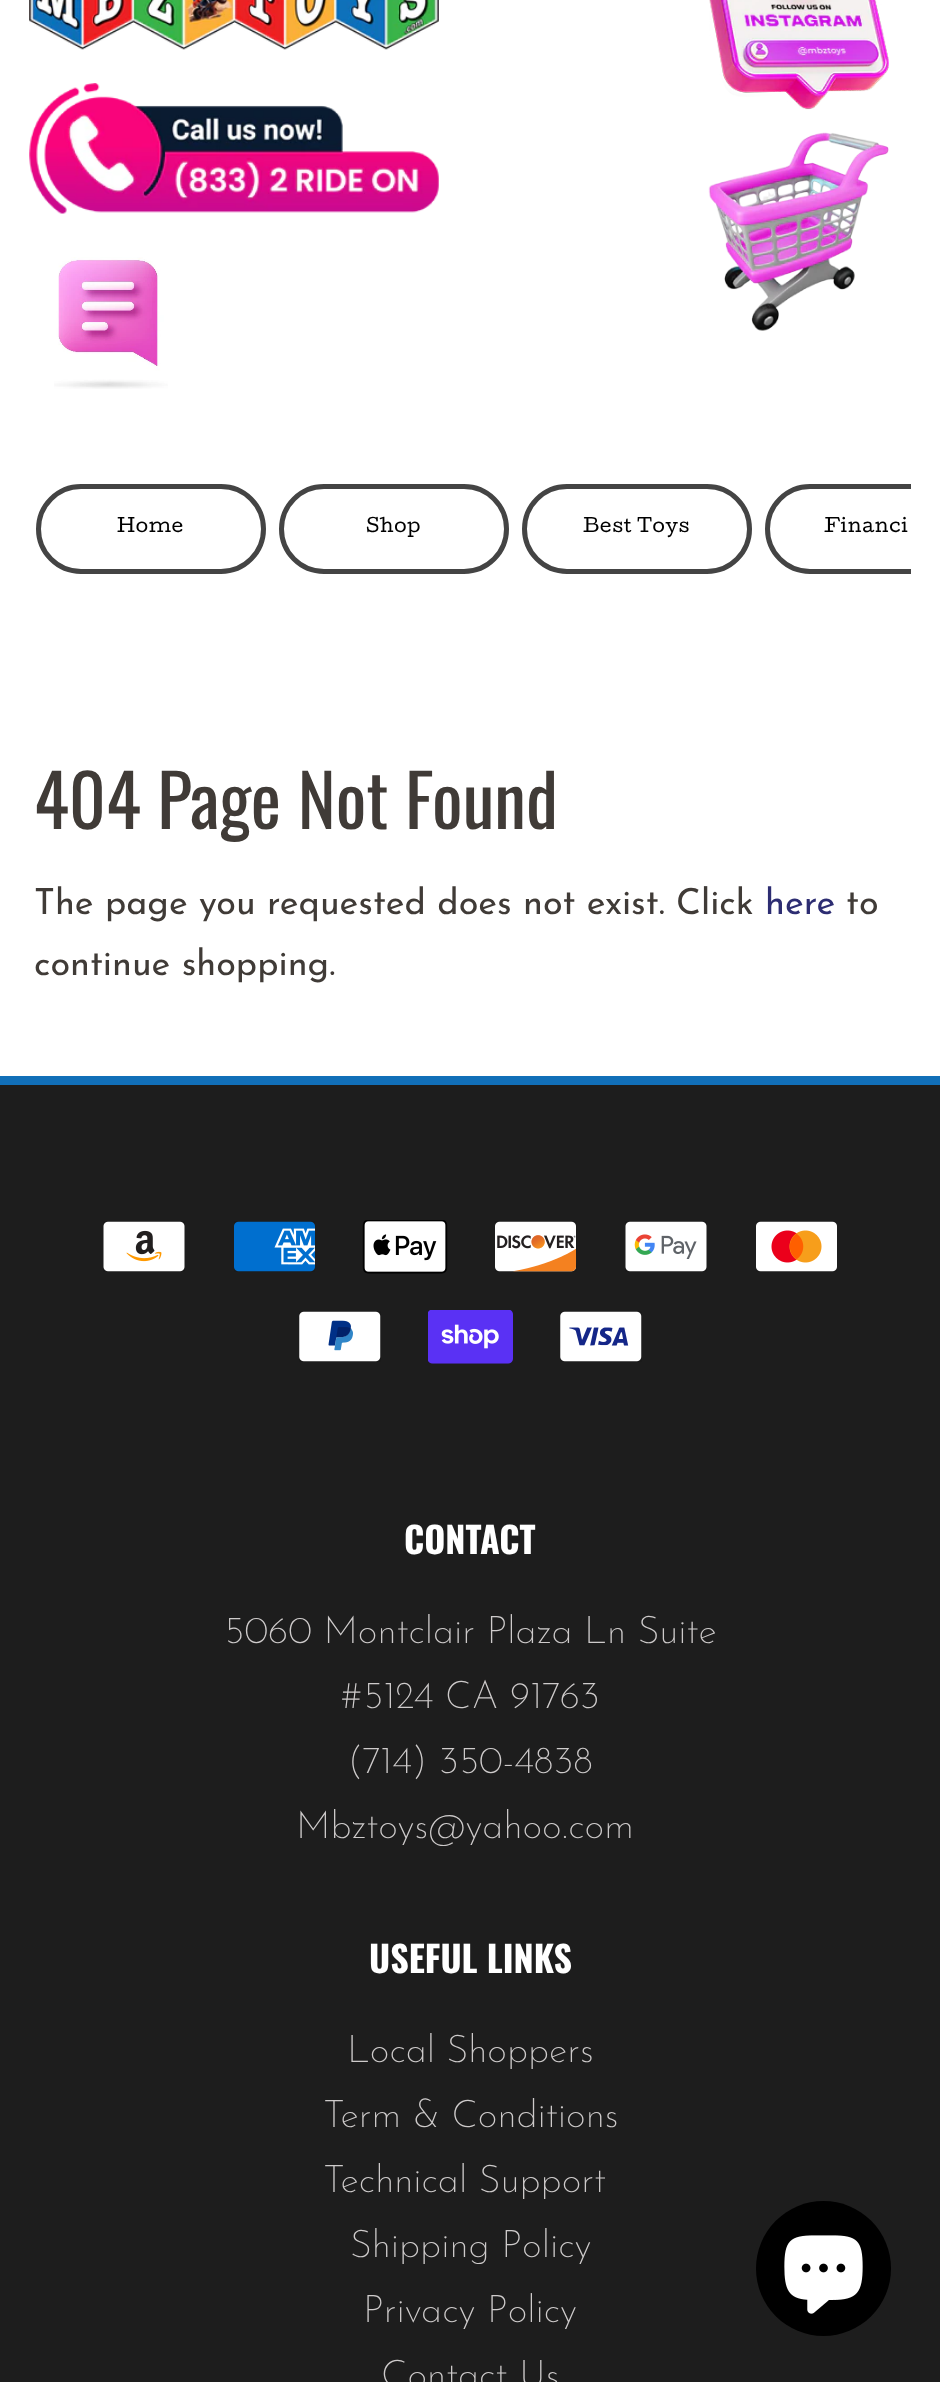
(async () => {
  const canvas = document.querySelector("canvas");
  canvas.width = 940;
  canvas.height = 2382;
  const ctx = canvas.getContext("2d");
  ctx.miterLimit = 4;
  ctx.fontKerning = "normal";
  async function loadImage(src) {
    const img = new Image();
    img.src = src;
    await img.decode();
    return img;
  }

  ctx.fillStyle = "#ffffff";
  ctx.fillRect(0, 0, 940, 2382);
  ctx.drawImage(await loadImage("img/1.png"), 29, 0, 410, 50);
  ctx.drawImage(await loadImage("img/2.png"), 29, 83, 410, 131);
  ctx.drawImage(await loadImage("img/3.png"), 54, 257, 114, 132);
  ctx.drawImage(await loadImage("img/4.png"), 709, 0, 180, 110);
  ctx.drawImage(await loadImage("img/5.png"), 708, 132, 181, 199);
  ctx.beginPath();
  ctx.roundRect(38.5, 486.5, 225, 85, 42.5);
  ctx.strokeStyle = "#444444";
  ctx.lineWidth = 5;
  ctx.stroke();
  ctx.beginPath();
  ctx.roundRect(281.5, 486.5, 225, 85, 42.5);
  ctx.stroke();
  ctx.beginPath();
  ctx.roundRect(524.5, 486.5, 225, 85, 42.5);
  ctx.stroke();
  ctx.save();
  ctx.beginPath();
  ctx.rect(29, 477, 882, 104);
  ctx.clip();
  ctx.beginPath();
  ctx.roundRect(767.5, 486.5, 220, 85, 42.5);
  ctx.stroke();
  ctx.restore();
  ctx.fillStyle = "#1d1d1d";
  ctx.fillRect(0, 1085, 940, 1297);
  ctx.fillStyle = "#116fb8";
  ctx.fillRect(0, 1076, 940, 9);
  ctx.drawImage(await loadImage("img/6.png"), 103, 1221, 82, 51);
  ctx.drawImage(await loadImage("img/7.png"), 234, 1221, 81, 51);
  ctx.drawImage(await loadImage("img/8.png"), 362, 1220, 86, 54);
  ctx.drawImage(await loadImage("img/9.png"), 495, 1221, 82, 51);
  ctx.drawImage(await loadImage("img/10.png"), 625, 1221, 82, 51);
  ctx.drawImage(await loadImage("img/11.png"), 756, 1221, 81, 51);
  ctx.drawImage(await loadImage("img/12.png"), 299, 1311, 82, 51);
  ctx.drawImage(await loadImage("img/13.png"), 428, 1310, 85, 54);
  ctx.drawImage(await loadImage("img/14.png"), 560, 1311, 82, 51);
  ctx.fillStyle = "#000000";
  ctx.beginPath();
  ctx.arc(823.5, 2268.5, 67.5, 0, Math.PI * 2);
  ctx.fill();
  ctx.drawImage(await loadImage("img/15.png"), 784, 2235, 79, 79);
  ctx.letterSpacing = "0.75px";
  ctx.font = "18px Cutive";
  for (const [text, x, y] of [
    ["Home", 117, 532],
    ["Shop", 366, 532],
    ["Best Toys", 583, 532],
    ["Financi", 824, 532],
  ]) {
    ctx.fillText(text, x, y);
  }
  ctx.letterSpacing = "0px";
  ctx.font = "72px Oswald";
  ctx.fillStyle = "#403b37";
  ctx.fillText("404 Page Not Found", 34, 829);
  ctx.font = "36px Josefin Sans";
  ctx.fillText("The page you requested does not exist. Click", 34, 914);
  ctx.fillStyle = "#2d2d72";
  ctx.fillText("here", 765, 914);
  ctx.fillStyle = "#403b37";
  ctx.fillText("to", 846, 914);
  ctx.fillText("continue shopping.", 34, 975);
  ctx.font = "bold 36px Oswald";
  ctx.fillStyle = "#ffffff";
  ctx.fillText("CONTACT", 404, 1554);
  ctx.font = "200 38.25px Josefin Sans";
  ctx.fillStyle = "#cecbcb";
  for (const [text, x, y] of [
    ["5060 Montclair Plaza Ln Suite", 224, 1643],
    ["#5124 CA 91763", 341, 1708],
    ["(714) 350-4838", 347, 1773],
    ["Mbztoys@yahoo.com", 296, 1838],
  ]) {
    ctx.fillText(text, x, y);
  }
  ctx.font = "bold 36px Oswald";
  ctx.fillStyle = "#ffffff";
  ctx.fillText("USEFUL LINKS", 369, 1973);
  ctx.font = "200 38.25px Josefin Sans";
  ctx.fillStyle = "#cecbcb";
  for (const [text, x, y] of [
    ["Local Shoppers", 347, 2062],
    ["Term & Conditions", 323, 2127],
    ["Technical Support", 323, 2192],
    ["Shipping Policy", 350, 2257],
    ["Privacy Policy", 363, 2322],
    ["Contact Us", 381, 2387],
  ]) {
    ctx.fillText(text, x, y);
  }
})();
